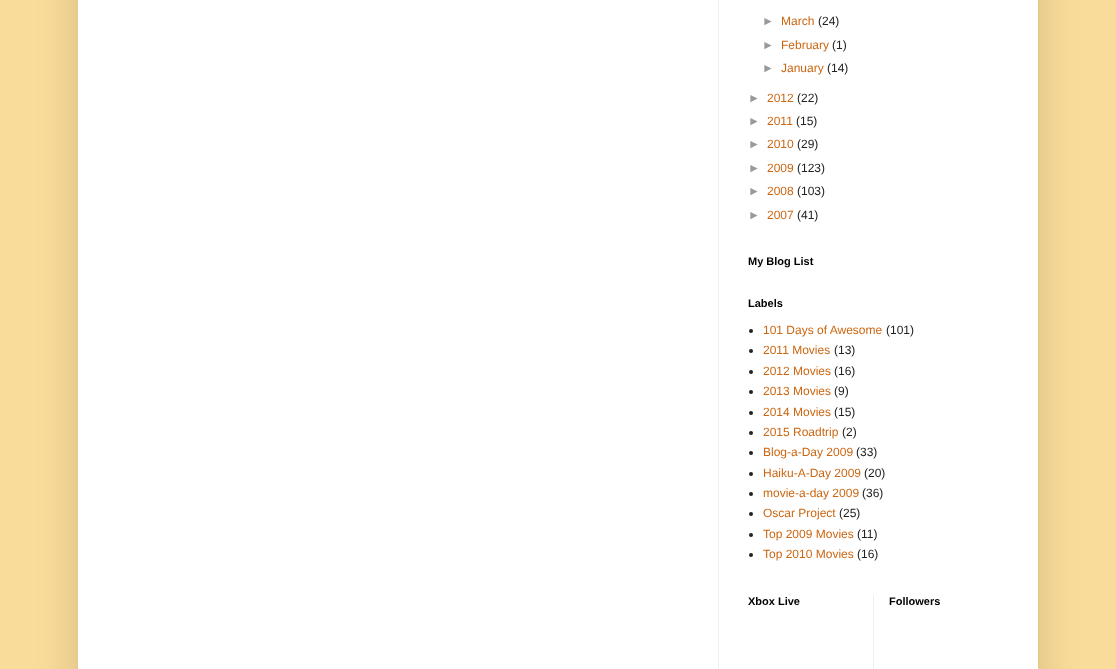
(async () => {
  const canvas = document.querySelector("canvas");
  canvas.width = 1116;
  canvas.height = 669;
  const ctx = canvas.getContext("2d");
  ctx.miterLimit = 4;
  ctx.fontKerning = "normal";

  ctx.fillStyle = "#f9dc99";
  ctx.fillRect(0, 0, 1116, 669);
  ctx.fillStyle = "rgba(0, 0, 0, 0.15)";
  ctx.filter = "blur(20px)";
  ctx.beginPath();
  ctx.rect(78, -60, 960, 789);
  ctx.fill();
  ctx.filter = "none";
  ctx.fillStyle = "#ffffff";
  ctx.fillRect(78, 0, 960, 669);
  ctx.fillStyle = "#eeeeee";
  ctx.fillRect(718, 0, 1, 669);
  ctx.fillStyle = "#222222";
  ctx.beginPath();
  ctx.arc(751, 331, 2, 0, Math.PI * 2);
  ctx.fill();
  ctx.beginPath();
  ctx.arc(751, 351, 2, 0, Math.PI * 2);
  ctx.fill();
  ctx.beginPath();
  ctx.arc(751, 372, 2, 0, Math.PI * 2);
  ctx.fill();
  ctx.beginPath();
  ctx.arc(751, 392, 2, 0, Math.PI * 2);
  ctx.fill();
  ctx.beginPath();
  ctx.arc(751, 413, 2, 0, Math.PI * 2);
  ctx.fill();
  ctx.beginPath();
  ctx.arc(751, 433, 2, 0, Math.PI * 2);
  ctx.fill();
  ctx.beginPath();
  ctx.arc(751, 453, 2, 0, Math.PI * 2);
  ctx.fill();
  ctx.beginPath();
  ctx.arc(751, 474, 2, 0, Math.PI * 2);
  ctx.fill();
  ctx.beginPath();
  ctx.arc(751, 494, 2, 0, Math.PI * 2);
  ctx.fill();
  ctx.beginPath();
  ctx.arc(751, 514, 2, 0, Math.PI * 2);
  ctx.fill();
  ctx.beginPath();
  ctx.arc(751, 535, 2, 0, Math.PI * 2);
  ctx.fill();
  ctx.beginPath();
  ctx.arc(751, 555, 2, 0, Math.PI * 2);
  ctx.fill();
  ctx.fillStyle = "#eeeeee";
  ctx.fillRect(873, 595, 1, 74);
  ctx.font = "12px Liberation Sans";
  ctx.fillStyle = "#999999";
  ctx.fillText("►", 762, 25);
  ctx.fillStyle = "#cc6611";
  ctx.fillText("March", 781, 25);
  ctx.fillStyle = "#222222";
  ctx.fillText("(24)", 818, 25);
  ctx.fillStyle = "#999999";
  ctx.fillText("►", 762, 49);
  ctx.fillStyle = "#cc6611";
  ctx.fillText("February", 781, 49);
  ctx.fillStyle = "#222222";
  ctx.fillText("(1)", 832, 49);
  ctx.fillStyle = "#999999";
  ctx.fillText("►", 762, 72);
  ctx.fillStyle = "#cc6611";
  ctx.fillText("January", 781, 72);
  ctx.fillStyle = "#222222";
  ctx.fillText("(14)", 827, 72);
  ctx.fillStyle = "#999999";
  ctx.fillText("►", 748, 102);
  ctx.fillStyle = "#cc6611";
  ctx.fillText("2012", 767, 102);
  ctx.fillStyle = "#222222";
  ctx.fillText("(22)", 797, 102);
  ctx.fillStyle = "#999999";
  ctx.fillText("►", 748, 125);
  ctx.fillStyle = "#cc6611";
  ctx.fillText("2011", 767, 125);
  ctx.fillStyle = "#222222";
  ctx.fillText("(15)", 796, 125);
  ctx.fillStyle = "#999999";
  ctx.fillText("►", 748, 148);
  ctx.fillStyle = "#cc6611";
  ctx.fillText("2010", 767, 148);
  ctx.fillStyle = "#222222";
  ctx.fillText("(29)", 797, 148);
  ctx.fillStyle = "#999999";
  ctx.fillText("►", 748, 172);
  ctx.fillStyle = "#cc6611";
  ctx.fillText("2009", 767, 172);
  ctx.fillStyle = "#222222";
  ctx.fillText("(123)", 797, 172);
  ctx.fillStyle = "#999999";
  ctx.fillText("►", 748, 195);
  ctx.fillStyle = "#cc6611";
  ctx.fillText("2008", 767, 195);
  ctx.fillStyle = "#222222";
  ctx.fillText("(103)", 797, 195);
  ctx.fillStyle = "#999999";
  ctx.fillText("►", 748, 219);
  ctx.fillStyle = "#cc6611";
  ctx.fillText("2007", 767, 219);
  ctx.fillStyle = "#222222";
  ctx.fillText("(41)", 797, 219);
  ctx.font = "bold 11px Liberation Sans";
  ctx.fillStyle = "#000000";
  ctx.fillText("My Blog List", 748, 265);
  ctx.fillText("Labels", 748, 307);
  ctx.font = "12px Liberation Sans";
  ctx.fillStyle = "#cc6611";
  ctx.fillText("101 Days of Awesome", 763, 334);
  ctx.fillStyle = "#222222";
  ctx.fillText("(101)", 886, 334);
  ctx.fillStyle = "#cc6611";
  ctx.fillText("2011 Movies", 763, 354);
  ctx.fillStyle = "#222222";
  ctx.fillText("(13)", 834, 354);
  ctx.fillStyle = "#cc6611";
  ctx.fillText("2012 Movies", 763, 375);
  ctx.fillStyle = "#222222";
  ctx.fillText("(16)", 834, 375);
  ctx.fillStyle = "#cc6611";
  ctx.fillText("2013 Movies", 763, 395);
  ctx.fillStyle = "#222222";
  ctx.fillText("(9)", 834, 395);
  ctx.fillStyle = "#cc6611";
  ctx.fillText("2014 Movies", 763, 416);
  ctx.fillStyle = "#222222";
  ctx.fillText("(15)", 834, 416);
  ctx.fillStyle = "#cc6611";
  ctx.fillText("2015 Roadtrip", 763, 436);
  ctx.fillStyle = "#222222";
  ctx.fillText("(2)", 842, 436);
  ctx.fillStyle = "#cc6611";
  ctx.fillText("Blog-a-Day 2009", 763, 456);
  ctx.fillStyle = "#222222";
  ctx.fillText("(33)", 856, 456);
  ctx.fillStyle = "#cc6611";
  ctx.fillText("Haiku-A-Day 2009", 763, 477);
  ctx.fillStyle = "#222222";
  ctx.fillText("(20)", 864, 477);
  ctx.fillStyle = "#cc6611";
  ctx.fillText("movie-a-day 2009", 763, 497);
  ctx.fillStyle = "#222222";
  ctx.fillText("(36)", 862, 497);
  ctx.fillStyle = "#cc6611";
  ctx.fillText("Oscar Project", 763, 517);
  ctx.fillStyle = "#222222";
  ctx.fillText("(25)", 839, 517);
  ctx.fillStyle = "#cc6611";
  ctx.fillText("Top 2009 Movies", 763, 538);
  ctx.fillStyle = "#222222";
  ctx.fillText("(11)", 857, 538);
  ctx.fillStyle = "#cc6611";
  ctx.fillText("Top 2010 Movies", 763, 558);
  ctx.fillStyle = "#222222";
  ctx.fillText("(16)", 857, 558);
  ctx.font = "bold 11px Liberation Sans";
  ctx.fillStyle = "#000000";
  ctx.fillText("Xbox Live", 748, 605);
  ctx.fillText("Followers", 889, 605);
})();
